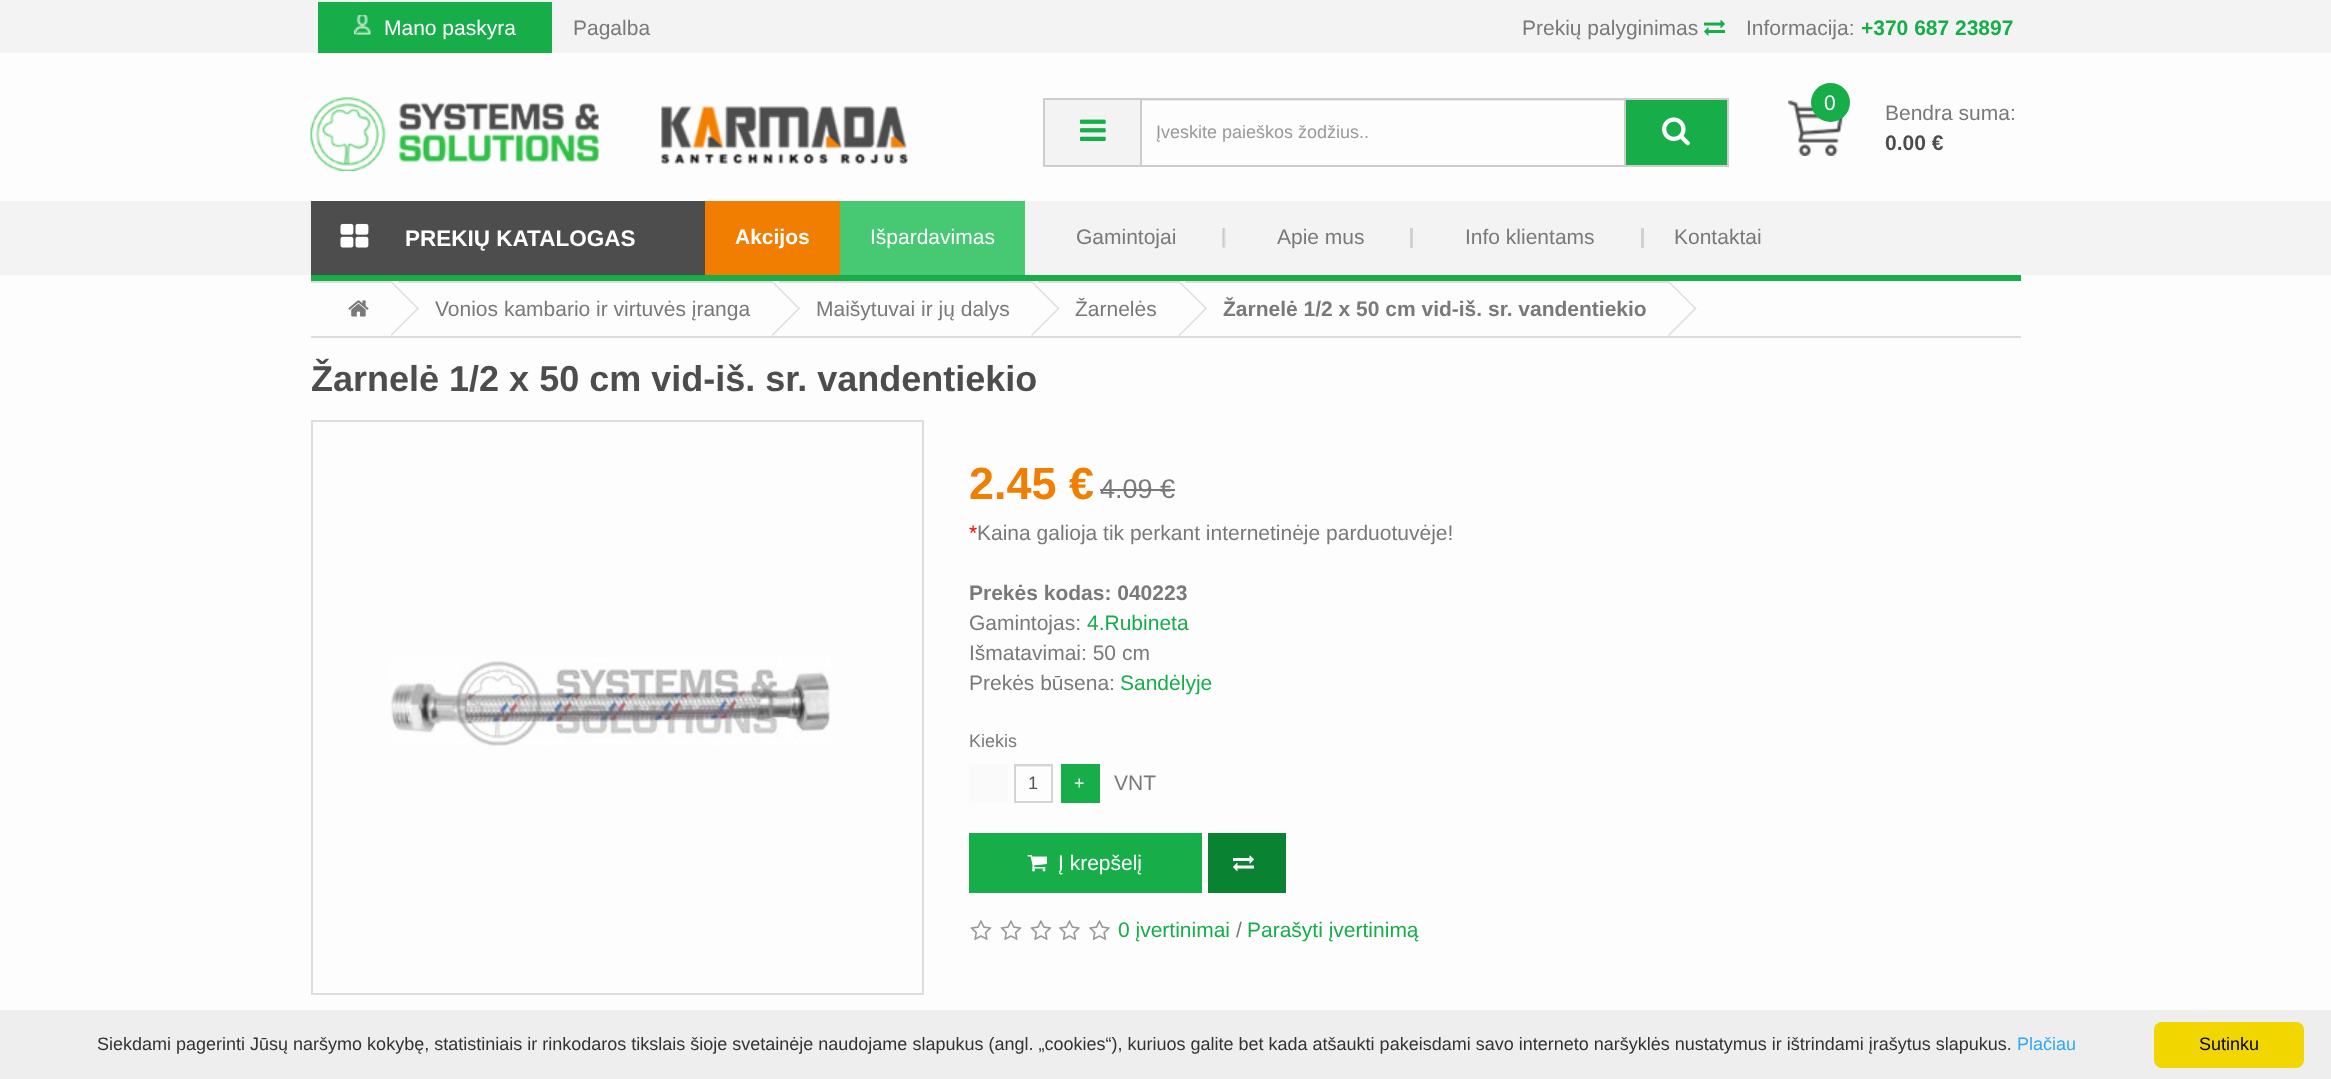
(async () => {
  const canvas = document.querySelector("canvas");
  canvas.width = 2331;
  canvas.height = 1079;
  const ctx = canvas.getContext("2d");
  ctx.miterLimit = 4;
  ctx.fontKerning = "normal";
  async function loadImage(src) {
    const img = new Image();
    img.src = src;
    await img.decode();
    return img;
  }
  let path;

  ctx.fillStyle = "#fdfdfd";
  ctx.fillRect(0, 0, 2331, 1079);
  ctx.fillStyle = "#f3f3f3";
  ctx.fillRect(0, 0, 2331, 53);
  ctx.fillStyle = "#17ad49";
  ctx.fillRect(318, 2, 234, 51);
  ctx.drawImage(await loadImage("img/1.png"), 354, 15, 17, 20);
  ctx.drawImage(await loadImage("img/2.png"), 1704, 19, 21, 17);
  ctx.drawImage(await loadImage("img/3.png"), 310, 97, 289, 74);
  ctx.drawImage(await loadImage("img/4.png"), 661, 106, 247, 58);
  for (const [x, y, w, h, color] of [
    [1045, 100, 95, 65, "#f3f3f3"],
    [1043, 98, 99, 2, "#cdcdcd"],
    [1043, 165, 99, 2, "#cdcdcd"],
    [1043, 98, 2, 69, "#cdcdcd"],
  ]) {
    ctx.fillStyle = color;
    ctx.fillRect(x, y, w, h);
  }
  ctx.drawImage(await loadImage("img/5.png"), 1080, 119, 26, 22);
  ctx.fillStyle = "#ececec";
  ctx.fillRect(1142, 100, 483, 1);
  ctx.strokeStyle = "#cccccc";
  ctx.lineWidth = 2;
  ctx.strokeRect(1141, 99, 484, 67);
  for (const [x, y, w, h, color] of [
    [1626, 100, 101, 65, "#17ad49"],
    [1626, 98, 102, 2, "#cdcdcd"],
    [1727, 98, 2, 69, "#cdcdcd"],
    [1626, 165, 102, 2, "#cdcdcd"],
  ]) {
    ctx.fillStyle = color;
    ctx.fillRect(x, y, w, h);
  }
  ctx.drawImage(await loadImage("img/6.png"), 1662, 117, 28, 29);
  ctx.drawImage(await loadImage("img/7.png"), 1788, 100, 56, 56);
  ctx.fillStyle = "#17ad49";
  ctx.beginPath();
  ctx.arc(1830.5, 102.5, 19.5, 0, Math.PI * 2);
  ctx.fill();
  ctx.fillStyle = "#f3f3f3";
  ctx.fillRect(0, 201, 2331, 74);
  ctx.fillStyle = "#4d4d4d";
  ctx.fillRect(311, 201, 394, 74);
  ctx.drawImage(await loadImage("img/8.png"), 340, 223, 29, 25);
  ctx.fillStyle = "#f17e00";
  ctx.fillRect(705, 201, 135, 74);
  ctx.fillStyle = "#47c872";
  ctx.fillRect(840, 201, 185, 74);
  ctx.drawImage(await loadImage("img/9.png"), 1222, 228, 4, 20);
  for (const [x, y, w, h, color] of [
    [1410, 228, 3, 20, "#d1d1d1"],
    [1641, 228, 3, 20, "#d1d1d1"],
    [311, 275, 1710, 6, "#17ad49"],
    [311, 336, 1710, 2, "#dddddd"],
    [311, 281, 81, 2, "#dddddd"],
  ]) {
    ctx.fillStyle = color;
    ctx.fillRect(x, y, w, h);
  }
  ctx.drawImage(await loadImage("img/10.png"), 348, 300, 21, 17);
  path = new Path2D("M390.5 282L391.5 281L419 308.5L418 309.5Z");
  ctx.fill(path);
  path = new Path2D("M390.5 335L418 307.5L419 308.5L391.5 336Z");
  ctx.fill(path);
  ctx.fillRect(398, 281, 375, 2);
  path = new Path2D("M771.5 282L772.5 281L800 308.5L799 309.5Z");
  ctx.fill(path);
  path = new Path2D("M771.5 335L799 307.5L800 308.5L772.5 336Z");
  ctx.fill(path);
  ctx.fillRect(779, 281, 253, 2);
  path = new Path2D("M1031 282L1032 281L1059.5 308.5L1058.5 309.5Z");
  ctx.fill(path);
  path = new Path2D("M1031 335L1058.5 307.5L1059.5 308.5L1032 336Z");
  ctx.fill(path);
  ctx.fillRect(1038, 281, 141, 2);
  path = new Path2D("M1178.5 282L1179.5 281L1207 308.5L1206 309.5Z");
  ctx.fill(path);
  path = new Path2D("M1178.5 335L1206 307.5L1207 308.5L1179.5 336Z");
  ctx.fill(path);
  ctx.fillRect(1185, 281, 485, 2);
  path = new Path2D("M1668 282L1669 281L1696.5 308.5L1695.5 309.5Z");
  ctx.fill(path);
  path = new Path2D("M1668 335L1695.5 307.5L1696.5 308.5L1669 336Z");
  ctx.fill(path);
  ctx.strokeStyle = "#dddddd";
  ctx.strokeRect(312, 421, 611, 573);
  ctx.drawImage(await loadImage("img/11.png"), 390, 657, 441, 89);
  for (const [x, y, w, h, color] of [
    [1100, 489, 75, 2, "#797979"],
    [969, 764, 39, 39, "#fafafa"],
    [1016, 766, 36, 1, "#ececec"],
  ]) {
    ctx.fillStyle = color;
    ctx.fillRect(x, y, w, h);
  }
  ctx.strokeStyle = "#d5d4d4";
  ctx.strokeRect(1015, 765, 37, 37);
  ctx.fillStyle = "#17ad49";
  ctx.fillRect(1061, 764, 39, 39);
  ctx.fillRect(969, 833, 233, 60);
  ctx.drawImage(await loadImage("img/12.png"), 1027, 855, 20, 17);
  ctx.fillStyle = "#098332";
  ctx.fillRect(1208, 833, 78, 60);
  ctx.drawImage(await loadImage("img/13.png"), 1233, 855, 21, 17);
  ctx.drawImage(await loadImage("img/14.png"), 970, 920, 22, 20);
  ctx.drawImage(await loadImage("img/14.png"), 1000, 920, 22, 20);
  ctx.drawImage(await loadImage("img/14.png"), 1030, 920, 22, 20);
  ctx.drawImage(await loadImage("img/15.png"), 1059, 920, 21, 20);
  ctx.drawImage(await loadImage("img/15.png"), 1089, 920, 21, 20);
  ctx.fillStyle = "#eeeeee";
  ctx.fillRect(0, 1010, 2331, 69);
  ctx.fillStyle = "#f1d600";
  ctx.beginPath();
  ctx.roundRect(2154, 1022, 150, 46, 8);
  ctx.fill();
  ctx.font = "21px Liberation Sans";
  ctx.fillStyle = "#ffffff";
  ctx.fillText("Mano paskyra", 384, 35);
  ctx.fillStyle = "#797979";
  for (const [text, x, y] of [
    ["Pagalba", 573, 35],
    ["Prekių palyginimas", 1522, 35],
    ["Informacija:", 1746, 35],
  ]) {
    ctx.fillText(text, x, y);
  }
  ctx.font = "bold 21px Liberation Sans";
  ctx.fillStyle = "#17ad49";
  ctx.fillText("+370 687 23897", 1861, 35);
  ctx.font = "18px Liberation Sans";
  ctx.fillStyle = "#999999";
  ctx.fillText("Įveskite paieškos žodžius..", 1156, 138);
  ctx.font = "21px Liberation Sans";
  ctx.fillStyle = "#ffffff";
  ctx.fillText("0", 1824, 110);
  ctx.fillStyle = "#797979";
  ctx.fillText("Bendra suma:", 1885, 120);
  ctx.font = "bold 21px Liberation Sans";
  ctx.fillStyle = "#4d4d4d";
  ctx.fillText("0.00 €", 1885, 150);
  ctx.font = "bold 22.5px Liberation Sans";
  ctx.fillStyle = "#ffffff";
  ctx.fillText("PREKIŲ KATALOGAS", 405, 246);
  ctx.font = "bold 21px Liberation Sans";
  ctx.fillText("Akcijos", 735, 244);
  ctx.font = "21px Liberation Sans";
  ctx.fillText("Išpardavimas", 870, 244);
  ctx.fillStyle = "#797979";
  for (const [text, x, y] of [
    ["Gamintojai", 1076, 244],
    ["Apie mus", 1277, 244],
    ["Info klientams", 1465, 244],
    ["Kontaktai", 1674, 244],
    ["Vonios kambario ir virtuvės įranga", 435, 316],
    ["Maišytuvai ir jų dalys", 816, 316],
    ["Žarnelės", 1075, 316],
  ]) {
    ctx.fillText(text, x, y);
  }
  ctx.font = "bold 21px Liberation Sans";
  ctx.fillText("Žarnelė 1/2 x 50 cm vid-iš. sr. vandentiekio", 1223, 316);
  ctx.font = "bold 36px Liberation Sans";
  ctx.fillStyle = "#4d4d4d";
  ctx.fillText("Žarnelė 1/2 x 50 cm vid-iš. sr. vandentiekio", 311, 391);
  ctx.font = "bold 45px Liberation Sans";
  ctx.fillStyle = "#f17e00";
  ctx.fillText("2.45 €", 969, 499);
  ctx.font = "27px Liberation Sans";
  ctx.fillStyle = "#797979";
  ctx.fillText("4.09 €", 1100, 498);
  ctx.font = "21px Liberation Sans";
  ctx.fillStyle = "#ff0000";
  ctx.fillText("*", 969, 540);
  ctx.fillStyle = "#797979";
  ctx.fillText("Kaina galioja tik perkant internetinėje parduotuvėje!", 977, 540);
  ctx.font = "bold 21px Liberation Sans";
  ctx.fillText("Prekės kodas: 040223", 969, 600);
  ctx.font = "21px Liberation Sans";
  ctx.fillText("Gamintojas:", 969, 630);
  ctx.fillStyle = "#17ad49";
  ctx.fillText("4.Rubineta", 1087, 630);
  ctx.fillStyle = "#797979";
  ctx.fillText("Išmatavimai: 50 cm", 969, 660);
  ctx.fillText("Prekės būsena:", 969, 690);
  ctx.fillStyle = "#17ad49";
  ctx.fillText("Sandėlyje", 1120, 690);
  ctx.font = "18px Liberation Sans";
  ctx.fillStyle = "#797979";
  ctx.fillText("Kiekis", 969, 747);
  ctx.fillStyle = "#555555";
  ctx.fillText("1", 1028, 789);
  ctx.fillStyle = "#ffffff";
  ctx.fillText("+", 1074, 789);
  ctx.font = "21px Liberation Sans";
  ctx.fillStyle = "#797979";
  ctx.fillText("VNT", 1114, 790);
  ctx.fillStyle = "#ffffff";
  ctx.fillText("Į krepšelį", 1058, 870);
  ctx.fillStyle = "#17ad49";
  ctx.fillText("0 įvertinimai", 1118, 937);
  ctx.fillStyle = "#797979";
  ctx.fillText("/", 1236, 937);
  ctx.fillStyle = "#17ad49";
  ctx.fillText("Parašyti įvertinimą", 1247, 937);
  ctx.font = "18px Liberation Sans";
  ctx.fillStyle = "#333333";
  ctx.fillText("Siekdami pagerinti Jūsų naršymo kokybę, statistiniais ir rinkodaros tikslais šioje svetainėje naudojame slapukus (angl. „cookies“), kuriuos galite bet kada atšaukti pakeisdami savo interneto naršyklės nustatymus ir ištrindami įrašytus slapukus.", 97, 1050);
  ctx.fillStyle = "#31a8f0";
  ctx.fillText("Plačiau", 2017, 1050);
  ctx.fillStyle = "#000000";
  ctx.fillText("Sutinku", 2199, 1050);
})();
